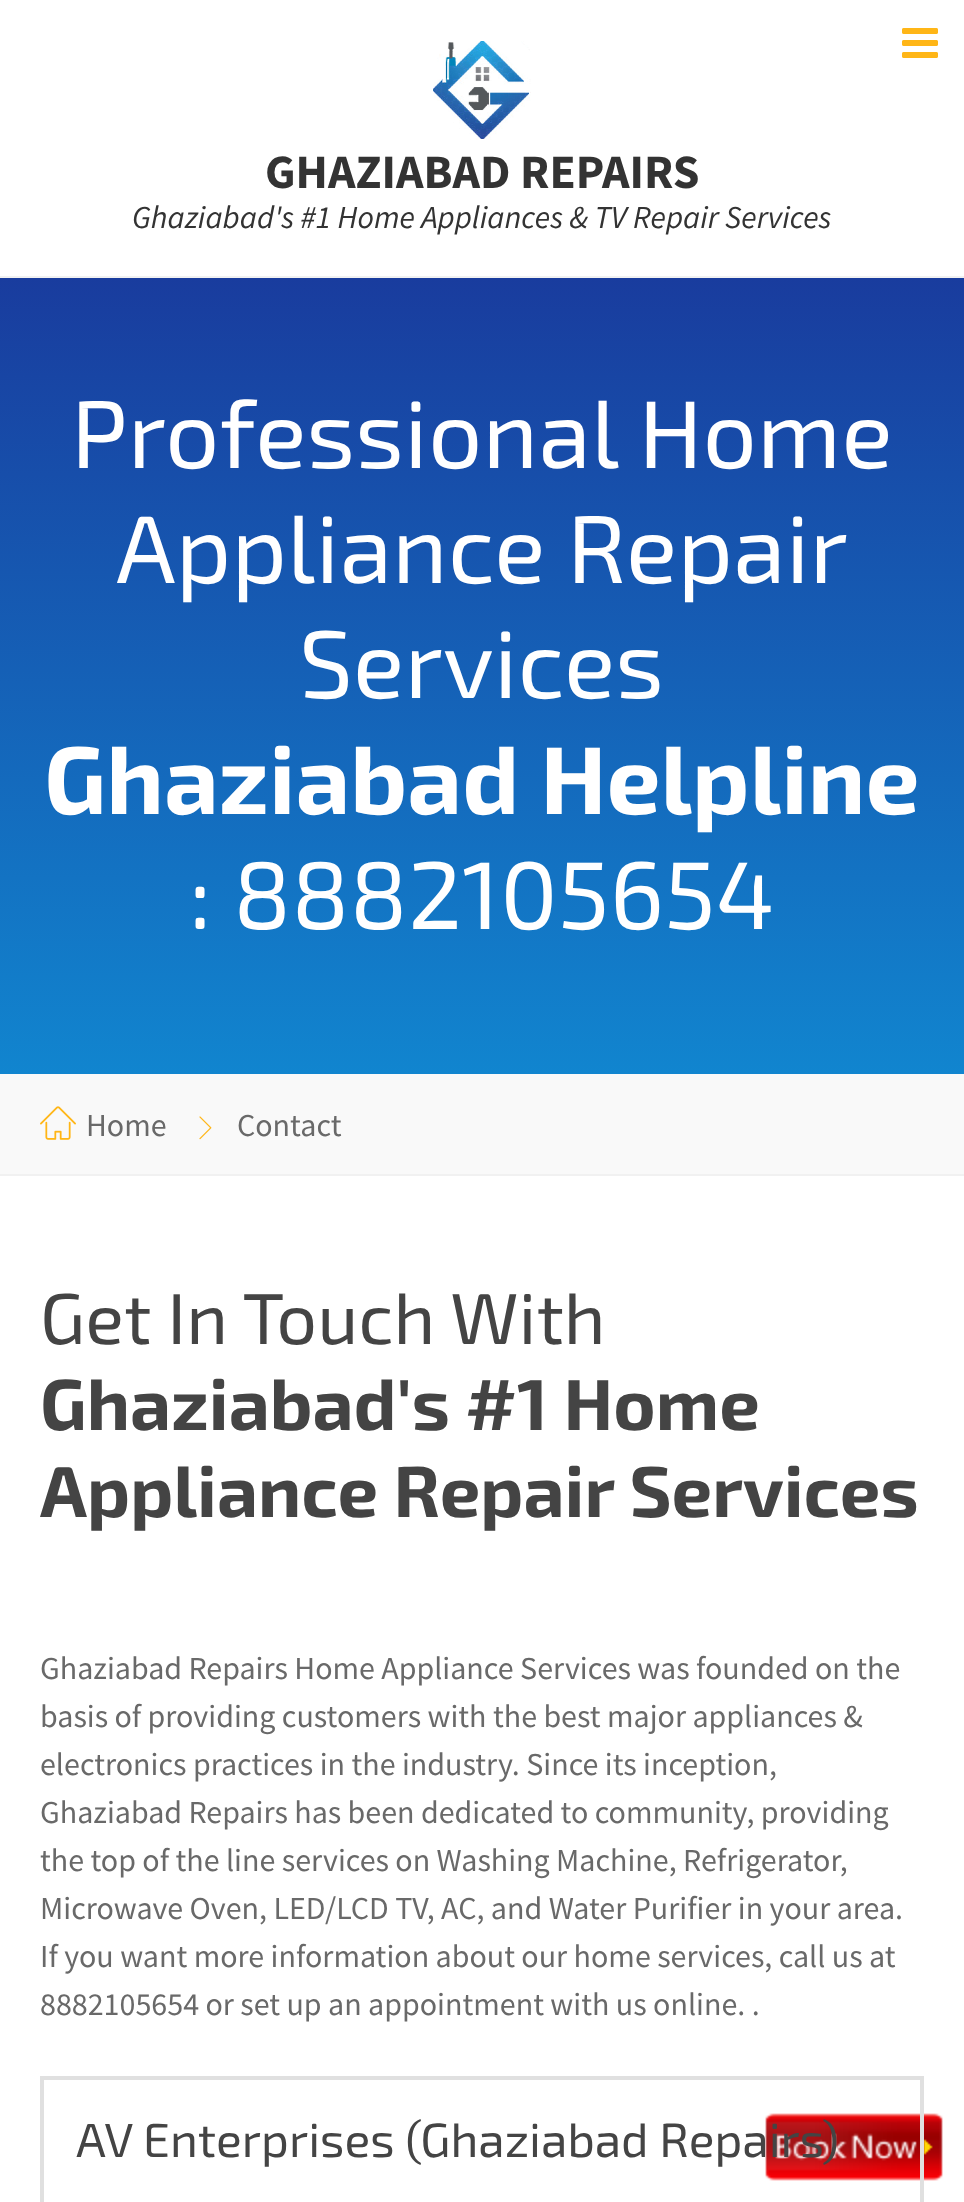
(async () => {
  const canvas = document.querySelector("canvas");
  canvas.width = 964;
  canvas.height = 2202;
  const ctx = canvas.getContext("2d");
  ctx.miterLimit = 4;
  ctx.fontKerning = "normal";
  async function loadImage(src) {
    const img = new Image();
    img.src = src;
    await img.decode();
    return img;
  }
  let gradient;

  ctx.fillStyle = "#ffffff";
  ctx.fillRect(0, 0, 964, 2202);
  ctx.fillStyle = "#f1f1f1";
  ctx.fillRect(0, 276, 964, 2);
  ctx.drawImage(await loadImage("img/1.png"), 902, 28, 36, 30);
  ctx.drawImage(await loadImage("img/2.png"), 433, 41, 98, 99);
  gradient = ctx.createLinearGradient(482, 278, 482, 1074);
  gradient.addColorStop(0, "#193c9e");
  gradient.addColorStop(1, "#1185cf");
  ctx.fillStyle = gradient;
  ctx.fillRect(0, 278, 964, 796);
  ctx.fillStyle = "#f9f9f9";
  ctx.fillRect(0, 1074, 964, 100);
  ctx.fillStyle = "#f1f1f1";
  ctx.fillRect(0, 1174, 964, 2);
  ctx.drawImage(await loadImage("img/3.png"), 40, 1106, 36, 34);
  ctx.drawImage(await loadImage("img/4.png"), 199, 1116, 13, 24);
  ctx.drawImage(await loadImage("img/5.png"), 765, 2113, 178, 68);
  ctx.strokeStyle = "#e0e0e0";
  ctx.lineWidth = 4;
  ctx.strokeRect(42, 2078, 880, 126);
  ctx.font = "bold 48px Source Sans Pro";
  ctx.fillStyle = "#333333";
  ctx.fillText("GHAZIABAD REPAIRS", 265, 188);
  ctx.font = "italic 32px Source Sans Pro";
  ctx.fillText("Ghaziabad's #1 Home Appliances & TV Repair Services", 132, 228);
  ctx.font = "96px 'Exo 2'";
  ctx.fillStyle = "#ffffff";
  for (const [text, x, y] of [
    ["Professional Home", 71, 468],
    ["Appliance Repair", 116, 583],
    ["Services", 299, 698],
  ]) {
    ctx.fillText(text, x, y);
  }
  ctx.font = "bold 96px 'Exo 2'";
  ctx.fillText("Ghaziabad Helpline", 44, 814);
  ctx.font = "96px 'Exo 2'";
  ctx.fillText(": 8882105654", 189, 929);
  ctx.font = "32px Source Sans Pro";
  ctx.fillStyle = "#696969";
  ctx.fillText("Home", 86, 1136);
  ctx.fillText("Contact", 237, 1136);
  ctx.font = "72px 'Exo 2'";
  ctx.fillStyle = "#444444";
  ctx.fillText("Get In Touch With", 40, 1344);
  ctx.font = "bold 72px 'Exo 2'";
  ctx.fillText("Ghaziabad's #1 Home", 40, 1430);
  ctx.fillText("Appliance Repair Services", 40, 1517);
  ctx.font = "32px Source Sans Pro";
  ctx.fillStyle = "#696969";
  for (const [text, x, y] of [
    ["Ghaziabad Repairs Home Appliance Services was founded on the", 40, 1679],
    ["basis of providing customers with the best major appliances &", 40, 1727],
    ["electronics practices in the industry. Since its inception,", 40, 1775],
    ["Ghaziabad Repairs has been dedicated to community, providing", 40, 1823],
    ["the top of the line services on Washing Machine, Refrigerator,", 40, 1871],
    ["Microwave Oven, LED/LCD TV, AC, and Water Purifier in your area.", 40, 1919],
    ["If you want more information about our home services, call us at", 40, 1967],
    ["8882105654 or set up an appointment with us online. .", 40, 2015],
  ]) {
    ctx.fillText(text, x, y);
  }
  ctx.font = "48px 'Exo 2'";
  ctx.fillStyle = "#444444";
  ctx.fillText("AV Enterprises (Ghaziabad Repairs)", 76, 2157);
})();
